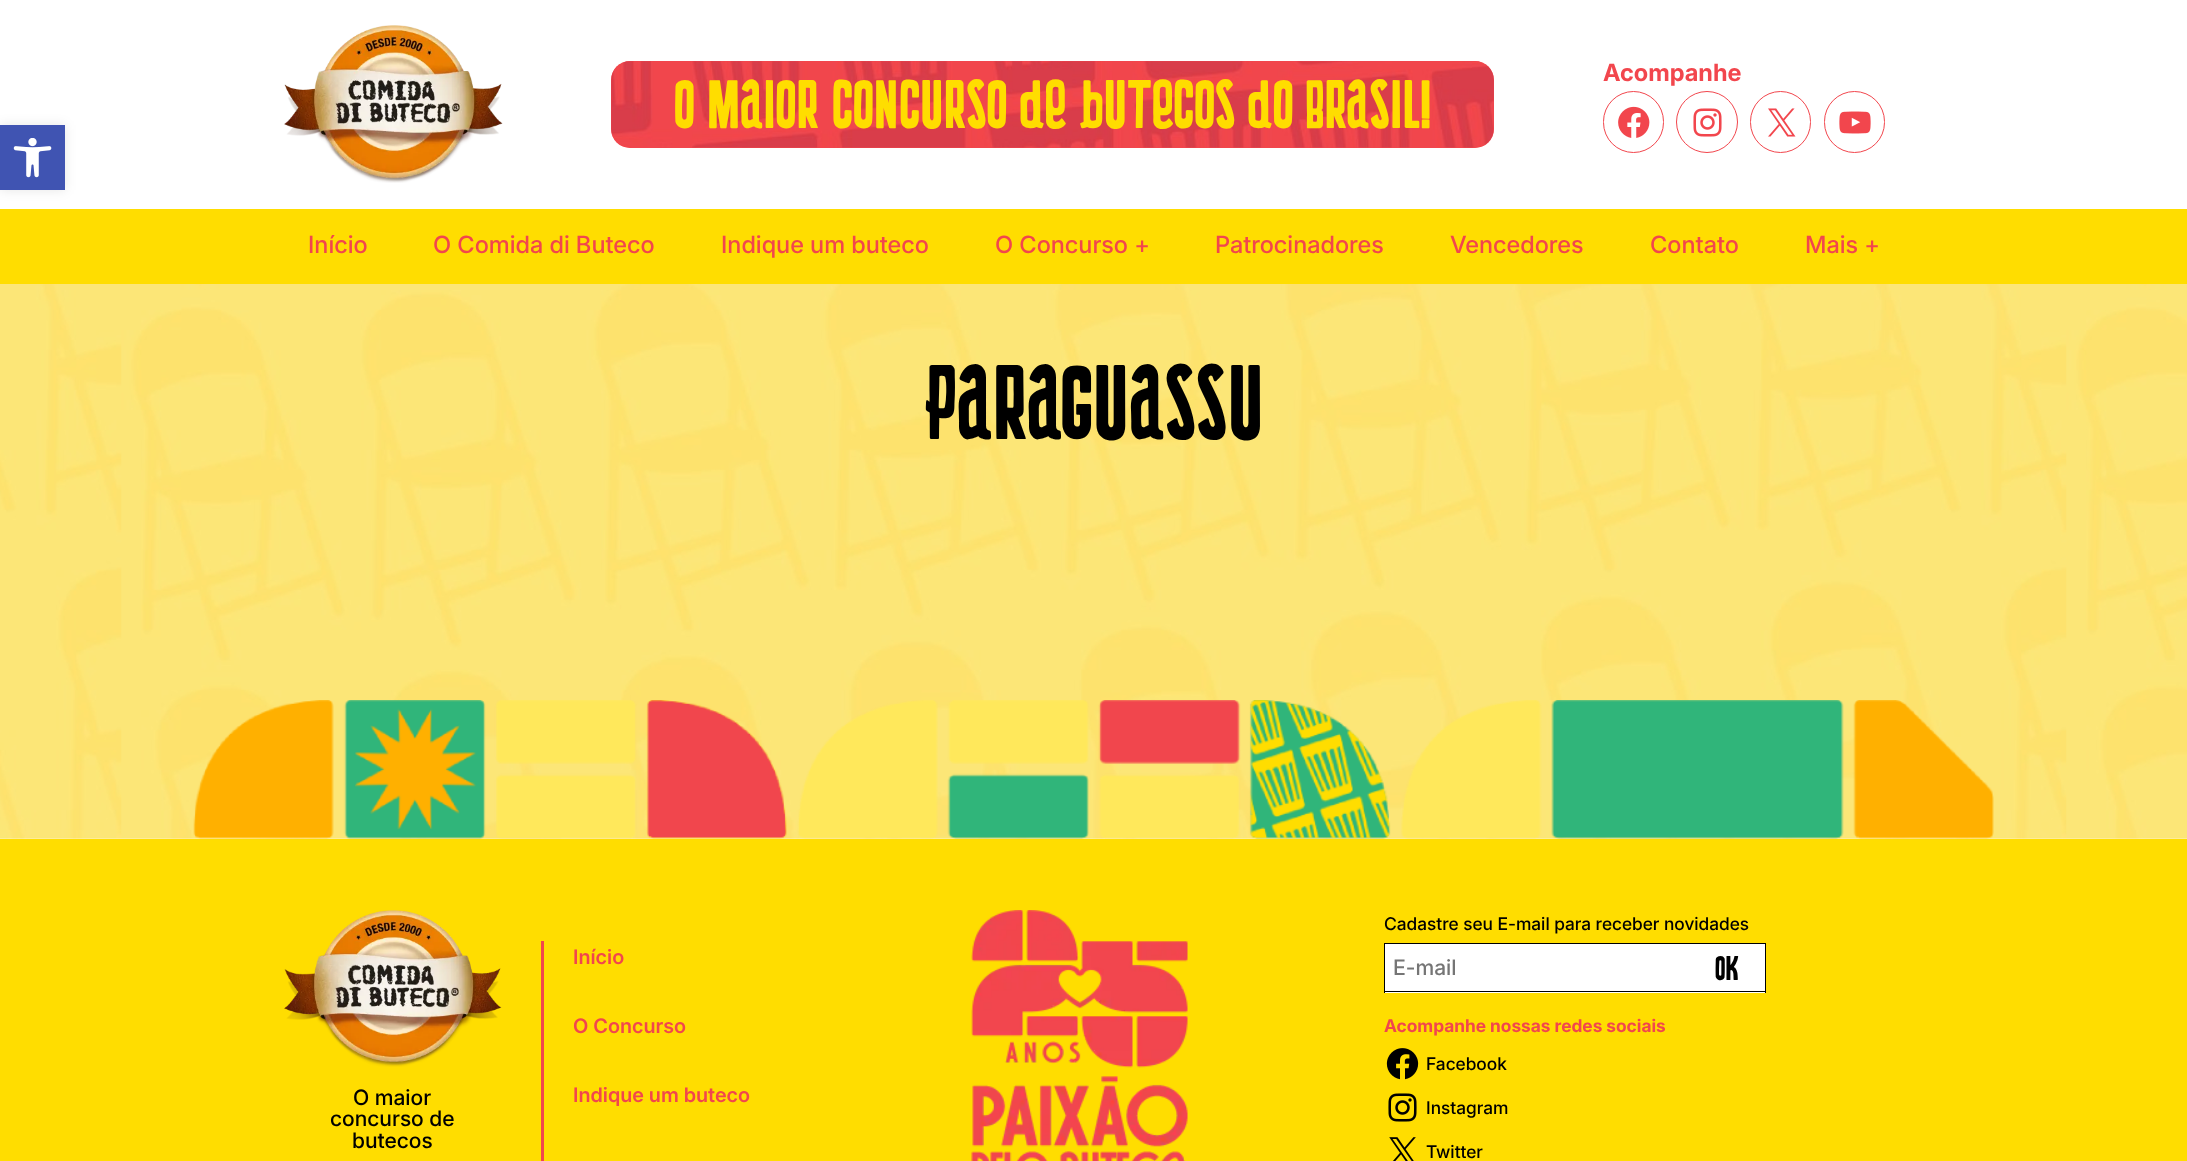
(async () => {
  const canvas = document.querySelector("canvas");
  canvas.width = 2187;
  canvas.height = 1161;
  const ctx = canvas.getContext("2d");
  ctx.miterLimit = 4;
  ctx.fontKerning = "normal";
  async function loadImage(src) {
    const img = new Image();
    img.src = src;
    await img.decode();
    return img;
  }

  ctx.fillStyle = "#ffffff";
  ctx.fillRect(0, 0, 2187, 1161);
  ctx.fillStyle = "rgba(0, 0, 0, 0.1)";
  ctx.filter = "blur(6px)";
  ctx.beginPath();
  ctx.rect(0, 125, 65, 65);
  ctx.fill();
  ctx.filter = "none";
  ctx.fillStyle = "#4054b2";
  ctx.fillRect(0, 125, 65, 65);
  ctx.drawImage(await loadImage("img/1.png"), 13, 138, 39, 40);
  ctx.drawImage(await loadImage("img/2.png"), 284, 25, 219, 158);
  ctx.beginPath();
  ctx.roundRect(1603.5, 91.5, 60, 61, 30);
  ctx.strokeStyle = "#f2464d";
  ctx.stroke();
  ctx.drawImage(await loadImage("img/3.png"), 1618, 106, 32, 32);
  ctx.beginPath();
  ctx.arc(1707, 122, 30.5, 0, Math.PI * 2);
  ctx.stroke();
  ctx.drawImage(await loadImage("img/4.png"), 1693, 108, 29, 29);
  ctx.beginPath();
  ctx.roundRect(1750.5, 91.5, 60, 61, 30);
  ctx.stroke();
  ctx.drawImage(await loadImage("img/5.png"), 1768, 108, 28, 29);
  ctx.beginPath();
  ctx.roundRect(1824.5, 91.5, 60, 61, 30);
  ctx.stroke();
  ctx.drawImage(await loadImage("img/6.png"), 1839, 111, 32, 23);
  ctx.fillStyle = "#f2464d";
  ctx.beginPath();
  ctx.roundRect(611, 61, 883, 87, 19);
  ctx.fill();
  ctx.drawImage(await loadImage("img/7.png"), 611, 61, 883, 87);
  ctx.fillStyle = "#ffdd00";
  ctx.fillRect(0, 209, 2187, 75);
  ctx.drawImage(await loadImage("img/8.png"), 0, 284, 2187, 555);
  ctx.drawImage(await loadImage("img/9.png"), 193, 700, 1801, 139);
  ctx.fillRect(0, 839, 2187, 322);
  ctx.fillStyle = "#f2464d";
  ctx.fillRect(541, 941, 3, 220);
  ctx.drawImage(await loadImage("img/10.png"), 284, 910, 218, 157);
  ctx.drawImage(await loadImage("img/11.png"), 971, 910, 217, 251);
  for (const [x, y, w, h, color] of [
    [1384, 943, 382, 1, "#000000"],
    [1385, 944, 380, 49, "#ffffff"],
    [1765, 943, 1, 50, "#000000"],
    [1384, 991, 382, 1, "#000000"],
    [1384, 943, 1, 50, "#000000"],
  ]) {
    ctx.fillStyle = color;
    ctx.fillRect(x, y, w, h);
  }
  ctx.drawImage(await loadImage("img/12.png"), 1386, 1048, 33, 32);
  ctx.drawImage(await loadImage("img/13.png"), 1388, 1093, 29, 29);
  ctx.drawImage(await loadImage("img/14.png"), 1389, 1137, 27, 24);
  ctx.font = "bold 23.75px Inter";
  ctx.fillStyle = "#f2464d";
  ctx.fillText("Acompanhe", 1603, 81);
  ctx.font = "60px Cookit";
  ctx.fillStyle = "#ffdd00";
  ctx.fillText("O maior concurso de butecos do Brasil!", 674, 128);
  ctx.font = "500 23.75px Inter";
  ctx.fillStyle = "#f2464d";
  for (const [text, x, y] of [
    ["Início", 308, 253],
    ["O Comida di Buteco", 433, 253],
    ["Indique um buteco", 721, 253],
    ["O Concurso +", 995, 253],
    ["Patrocinadores", 1215, 253],
    ["Vencedores", 1450, 253],
    ["Contato", 1650, 253],
    ["Mais +", 1805, 253],
  ]) {
    ctx.fillText(text, x, y);
  }
  ctx.font = "92.5px Cookit";
  ctx.fillStyle = "#000000";
  ctx.fillText("Paraguassu", 924, 439);
  ctx.font = "600 20px Inter";
  ctx.fillStyle = "#f2464d";
  for (const [text, x, y] of [
    ["Início", 573, 964],
    ["O Concurso", 573, 1033],
    ["Indique um buteco", 573, 1102],
  ]) {
    ctx.fillText(text, x, y);
  }
  ctx.font = "500 21.25px Inter";
  ctx.fillStyle = "#000000";
  for (const [text, x, y] of [
    ["O maior", 353, 1105],
    ["concurso de", 330, 1126],
    ["butecos", 352, 1148],
  ]) {
    ctx.fillText(text, x, y);
  }
  ctx.font = "500 17.5px Inter";
  ctx.fillText("Cadastre seu E-mail para receber novidades", 1384, 930);
  ctx.font = "500 21.25px Inter";
  ctx.fillStyle = "#757575";
  ctx.fillText("E-mail", 1393, 975);
  ctx.font = "30px Cookit";
  ctx.fillStyle = "#000000";
  ctx.fillText("OK", 1715, 980);
  ctx.font = "bold 17.5px Inter";
  ctx.fillStyle = "#f2464d";
  ctx.fillText("Acompanhe nossas redes sociais", 1384, 1032);
  ctx.font = "500 17.5px Inter";
  ctx.fillStyle = "#000000";
  for (const [text, x, y] of [
    ["Facebook", 1426, 1070],
    ["Instagram", 1426, 1114],
    ["Twitter", 1426, 1158],
  ]) {
    ctx.fillText(text, x, y);
  }
})();
